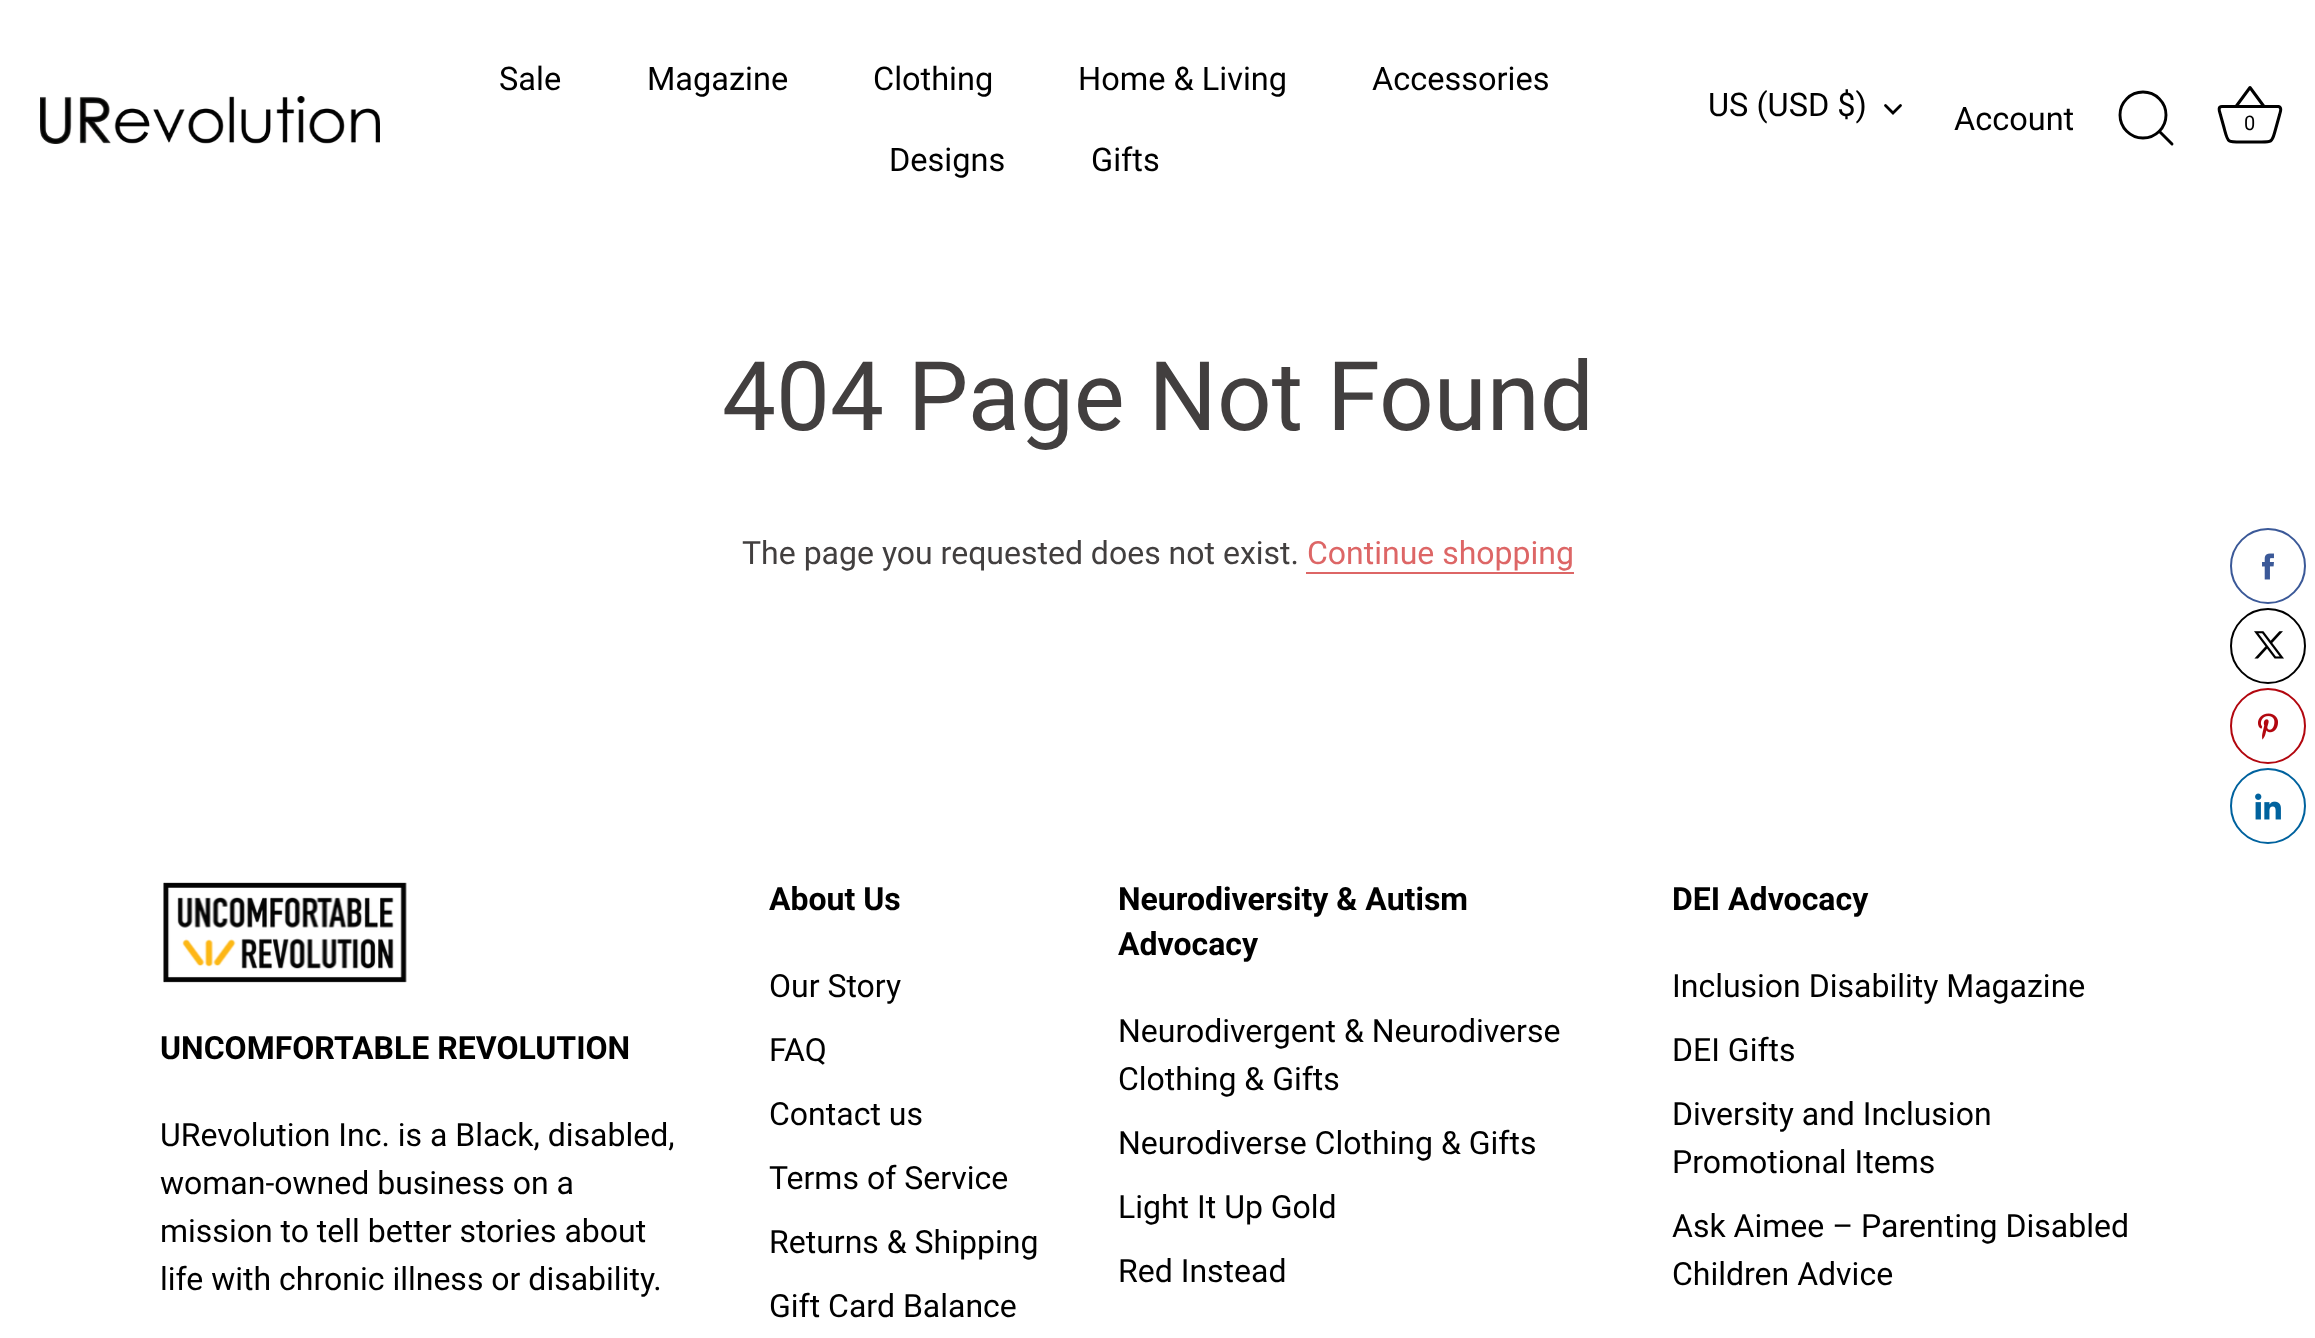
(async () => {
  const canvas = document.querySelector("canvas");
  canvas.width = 2315;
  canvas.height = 1338;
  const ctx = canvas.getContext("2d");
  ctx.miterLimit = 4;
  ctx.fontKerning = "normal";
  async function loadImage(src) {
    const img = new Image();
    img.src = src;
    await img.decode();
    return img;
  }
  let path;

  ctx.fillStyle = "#ffffff";
  ctx.fillRect(0, 0, 2315, 1338);
  ctx.drawImage(await loadImage("img/1.png"), 40, 96, 340, 48);
  path = new Path2D("M1885.5 105.5L1893 113L1900.5 105.5");
  ctx.strokeStyle = "#000000";
  ctx.lineWidth = 2.8;
  ctx.lineCap = "round";
  ctx.stroke(path);
  ctx.beginPath();
  ctx.arc(2143, 115, 23, 0, Math.PI * 2);
  ctx.lineWidth = 2.9;
  ctx.stroke();
  path = new Path2D("M2172 144L2159.5 131.5");
  ctx.lineJoin = "round";
  ctx.stroke(path);
  path = new Path2D("M2222 106.5C2217 106.5 2220 112.5 2220.5 115L2223 124C2228.5 143 2225 142 2244 142H2261.5C2271 142 2272 142 2274.5 133L2279.5 115C2280 112.5 2282.5 107.5 2278.5 106.5H2222");
  ctx.lineWidth = 3;
  ctx.lineCap = "butt";
  ctx.stroke(path);
  path = new Path2D("M2236 106.5L2250 87.5L2264 106.5");
  ctx.stroke(path);
  ctx.fillStyle = "#dd6666";
  ctx.fillRect(1306, 572, 268, 2);
  ctx.beginPath();
  ctx.arc(2268, 566, 37, 0, Math.PI * 2);
  ctx.strokeStyle = "#3b5998";
  ctx.lineWidth = 2;
  ctx.stroke();
  ctx.drawImage(await loadImage("img/2.png"), 2262, 553, 12, 27);
  ctx.beginPath();
  ctx.arc(2268, 646, 37, 0, Math.PI * 2);
  ctx.strokeStyle = "#000000";
  ctx.stroke();
  ctx.drawImage(await loadImage("img/3.png"), 2254, 631, 30, 28);
  ctx.beginPath();
  ctx.arc(2268, 726, 37, 0, Math.PI * 2);
  ctx.strokeStyle = "#b2070f";
  ctx.stroke();
  ctx.drawImage(await loadImage("img/4.png"), 2258, 713, 20, 27);
  ctx.beginPath();
  ctx.arc(2268, 806, 37, 0, Math.PI * 2);
  ctx.strokeStyle = "#00629e";
  ctx.stroke();
  ctx.drawImage(await loadImage("img/5.png"), 2255, 793, 26, 27);
  ctx.drawImage(await loadImage("img/6.png"), 163, 882, 244, 101);
  ctx.font = "32.5px Roboto";
  ctx.fillStyle = "#000000";
  for (const [text, x, y] of [
    ["Sale", 499, 90],
    ["Magazine", 647, 90],
    ["Clothing", 873, 90],
    ["Home & Living", 1078, 90],
    ["Accessories", 1372, 90],
    ["Designs", 889, 171],
    ["Gifts", 1091, 171],
    ["US (USD $)", 1708, 116],
    ["Account", 1954, 130],
  ]) {
    ctx.fillText(text, x, y);
  }
  ctx.font = "20px Roboto";
  ctx.fillText("0", 2244, 130);
  ctx.font = "96px Roboto";
  ctx.fillStyle = "#423f3f";
  ctx.fillText("404 Page Not Found", 722, 430);
  ctx.font = "32px Roboto";
  ctx.fillText("The page you requested does not exist.", 742, 564);
  ctx.fillStyle = "#dd6666";
  ctx.fillText("Continue shopping", 1307, 564);
  ctx.font = "bold 32px Roboto";
  ctx.fillStyle = "#000000";
  ctx.fillText("UNCOMFORTABLE REVOLUTION", 160, 1059);
  ctx.font = "32px Roboto";
  for (const [text, x, y] of [
    ["URevolution Inc. is a Black, disabled,", 160, 1146],
    ["woman-owned business on a", 160, 1194],
    ["mission to tell better stories about", 160, 1242],
    ["life with chronic illness or disability.", 160, 1290],
  ]) {
    ctx.fillText(text, x, y);
  }
  ctx.font = "bold 32px Roboto";
  ctx.fillText("About Us", 769, 910);
  ctx.font = "32px Roboto";
  for (const [text, x, y] of [
    ["Our Story", 769, 997],
    ["FAQ", 769, 1061],
    ["Contact us", 769, 1125],
    ["Terms of Service", 769, 1189],
    ["Returns & Shipping", 769, 1253],
    ["Gift Card Balance", 769, 1317],
  ]) {
    ctx.fillText(text, x, y);
  }
  ctx.font = "bold 32px Roboto";
  ctx.fillText("Neurodiversity & Autism", 1118, 910);
  ctx.fillText("Advocacy", 1118, 955);
  ctx.font = "32px Roboto";
  for (const [text, x, y] of [
    ["Neurodivergent & Neurodiverse", 1118, 1042],
    ["Clothing & Gifts", 1118, 1090],
    ["Neurodiverse Clothing & Gifts", 1118, 1154],
    ["Light It Up Gold", 1118, 1218],
    ["Red Instead", 1118, 1282],
  ]) {
    ctx.fillText(text, x, y);
  }
  ctx.font = "bold 32px Roboto";
  ctx.fillText("DEI Advocacy", 1672, 910);
  ctx.font = "32px Roboto";
  for (const [text, x, y] of [
    ["Inclusion Disability Magazine", 1672, 997],
    ["DEI Gifts", 1672, 1061],
    ["Diversity and Inclusion", 1672, 1125],
    ["Promotional Items", 1672, 1173],
    ["Ask Aimee – Parenting Disabled", 1672, 1237],
    ["Children Advice", 1672, 1285],
  ]) {
    ctx.fillText(text, x, y);
  }
})();
